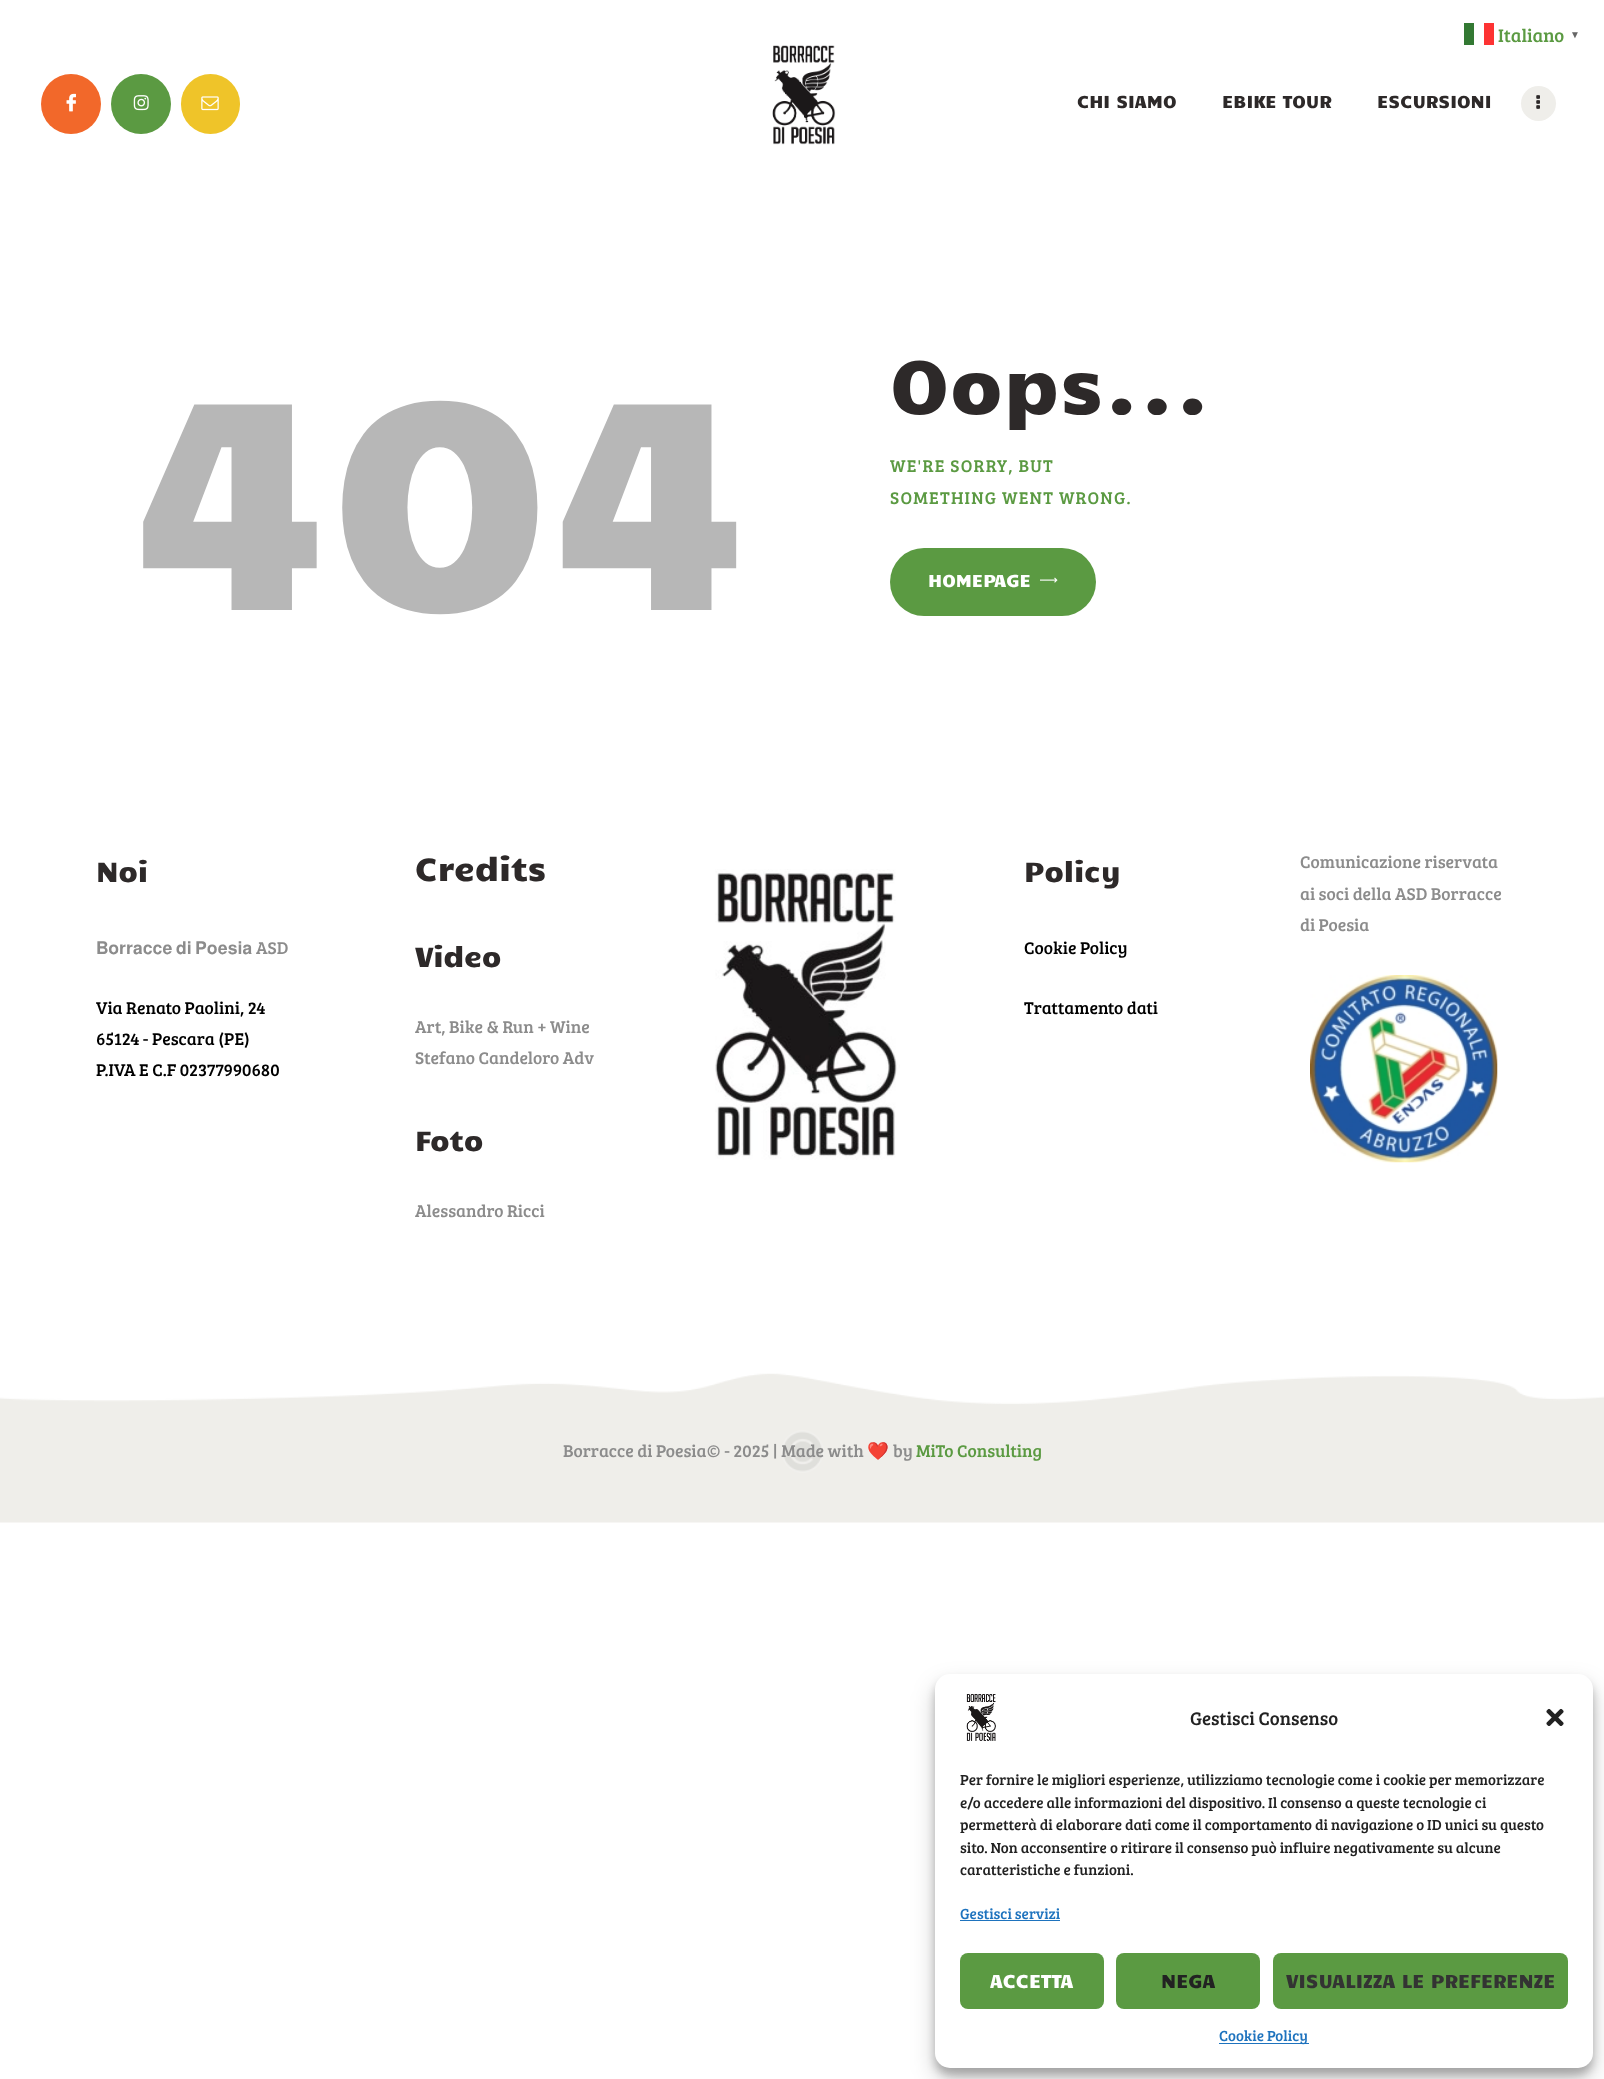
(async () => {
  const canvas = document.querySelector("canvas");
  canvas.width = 1604;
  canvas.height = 2079;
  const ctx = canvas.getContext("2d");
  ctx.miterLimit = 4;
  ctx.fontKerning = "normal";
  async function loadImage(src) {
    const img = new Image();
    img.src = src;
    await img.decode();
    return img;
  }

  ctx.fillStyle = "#ffffff";
  ctx.fillRect(0, 0, 1604, 2079);
  ctx.fillStyle = "#337933";
  ctx.fillRect(1464, 23, 10, 22);
  ctx.fillStyle = "#fd3333";
  ctx.fillRect(1484, 23, 10, 22);
  ctx.fillStyle = "#f2682a";
  ctx.beginPath();
  ctx.arc(71, 104, 30, 0, Math.PI * 2);
  ctx.fill();
  ctx.drawImage(await loadImage("img/1.png"), 66, 93, 10, 19);
  ctx.fillStyle = "#5b9a42";
  ctx.beginPath();
  ctx.arc(141, 104, 30, 0, Math.PI * 2);
  ctx.fill();
  ctx.drawImage(await loadImage("img/2.png"), 133, 95, 16, 16);
  ctx.fillStyle = "#efc429";
  ctx.beginPath();
  ctx.roundRect(181, 74, 59, 60, 29.5);
  ctx.fill();
  ctx.drawImage(await loadImage("img/3.png"), 201, 96, 18, 15);
  ctx.drawImage(await loadImage("img/4.png"), 772, 45, 64, 100);
  ctx.fillStyle = "#efeeea";
  ctx.beginPath();
  ctx.arc(1538.5, 103.5, 17.5, 0, Math.PI * 2);
  ctx.fill();
  ctx.drawImage(await loadImage("img/5.png"), 1536, 95, 4, 14);
  ctx.fillStyle = "#5b9a42";
  ctx.beginPath();
  ctx.roundRect(890, 548, 206, 68, 34);
  ctx.fill();
  ctx.drawImage(await loadImage("img/6.png"), 1040, 577, 18, 6);
  ctx.drawImage(await loadImage("img/7.png"), 715, 869, 185, 291);
  ctx.drawImage(await loadImage("img/8.png"), 1310, 975, 188, 188);
  ctx.drawImage(await loadImage("img/9.png"), 0, 1373, 1604, 150);
  ctx.fillStyle = "rgba(0, 0, 0, 0.23)";
  ctx.filter = "blur(4px)";
  ctx.beginPath();
  ctx.roundRect(935, 1681, 658, 394, 15);
  ctx.fill();
  ctx.filter = "none";
  ctx.fillStyle = "rgba(0, 0, 0, 0.19)";
  ctx.filter = "blur(12.5px)";
  ctx.beginPath();
  ctx.roundRect(935, 1686, 658, 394, 15);
  ctx.fill();
  ctx.filter = "none";
  ctx.fillStyle = "#ffffff";
  ctx.beginPath();
  ctx.roundRect(935, 1674, 658, 394, 15);
  ctx.fill();
  ctx.drawImage(await loadImage("img/10.png"), 966, 1694, 30, 47);
  ctx.drawImage(await loadImage("img/11.png"), 1546, 1708, 18, 18);
  ctx.fillStyle = "#1e73be";
  ctx.fillRect(960, 1920, 100, 1);
  ctx.fillStyle = "#5b9a42";
  ctx.beginPath();
  ctx.roundRect(960, 1953, 144, 56, 8);
  ctx.fill();
  ctx.beginPath();
  ctx.roundRect(1116, 1953, 144, 56, 8);
  ctx.fill();
  ctx.beginPath();
  ctx.roundRect(1273, 1953, 295, 56, 8);
  ctx.fill();
  ctx.fillStyle = "#1e73be";
  ctx.fillRect(1219, 2043, 90, 1);
  ctx.font = "18.75px Bree Serif";
  ctx.fillStyle = "#5b9a42";
  ctx.fillText("Italiano", 1498, 42);
  ctx.font = "bold 10px Liberation Serif";
  ctx.fillStyle = "#666666";
  ctx.fillText("▼", 1570, 38);
  ctx.font = "17.5px Candal";
  ctx.fillStyle = "#2d2929";
  for (const [text, x, y] of [
    ["CHI SIAMO", 1077, 108],
    ["EBIKE TOUR", 1222, 108],
    ["ESCURSIONI", 1377, 108],
  ]) {
    ctx.fillText(text, x, y);
  }
  ctx.font = "297.5px Candal";
  ctx.fillStyle = "#b7b7b7";
  ctx.fillText("404", 131, 610);
  ctx.letterSpacing = "1.25px";
  ctx.font = "76px Candal";
  ctx.fillStyle = "#2d2929";
  ctx.fillText("Oops...", 890, 414);
  ctx.font = "17.5px Bree Serif";
  ctx.fillStyle = "#5b9a42";
  ctx.fillText("WE'RE SORRY, BUT", 890, 472);
  ctx.fillText("SOMETHING WENT WRONG.", 890, 504);
  ctx.letterSpacing = "0px";
  ctx.font = "17.5px Candal";
  ctx.fillStyle = "#ffffff";
  ctx.fillText("HOMEPAGE", 928, 587);
  ctx.font = "28px Candal";
  ctx.fillStyle = "#2d2929";
  ctx.fillText("Noi", 96, 882);
  ctx.wordSpacing = "-1px";
  ctx.font = "17.5px FreeSans";
  ctx.fillStyle = "#8c8c8c";
  ctx.fillText("𝐁𝐨𝐫𝐫𝐚𝐜𝐜𝐞 𝐝𝐢 𝐏𝐨𝐞𝐬𝐢𝐚", 96, 954);
  ctx.wordSpacing = "0px";
  ctx.font = "17.5px Bree Serif";
  ctx.fillText("ASD", 256, 954);
  ctx.fillStyle = "#000000";
  for (const [text, x, y] of [
    ["Via Renato Paolini, 24", 96, 1014],
    ["65124 - Pescara (PE)", 96, 1045],
    ["P.IVA E C.F 02377990680", 96, 1076],
  ]) {
    ctx.fillText(text, x, y);
  }
  ctx.font = "32.5px Candal";
  ctx.fillStyle = "#2d2929";
  ctx.fillText("Credits", 415, 881);
  ctx.font = "28px Candal";
  ctx.fillText("Video", 415, 967);
  ctx.font = "17.5px Bree Serif";
  ctx.fillStyle = "#8c8c8c";
  ctx.fillText("Art, Bike & Run + Wine", 415, 1033);
  ctx.fillText("Stefano Candeloro Adv", 415, 1064);
  ctx.font = "28px Candal";
  ctx.fillStyle = "#2d2929";
  ctx.fillText("Foto", 415, 1151);
  ctx.font = "17.5px Bree Serif";
  ctx.fillStyle = "#8c8c8c";
  ctx.fillText("Alessandro Ricci", 415, 1217);
  ctx.font = "28px Candal";
  ctx.fillStyle = "#2d2929";
  ctx.fillText("Policy", 1024, 882);
  ctx.font = "17.5px Bree Serif";
  ctx.fillStyle = "#000000";
  ctx.fillText("Cookie Policy", 1024, 954);
  ctx.fillText("Trattamento dati", 1024, 1014);
  ctx.fillStyle = "#8c8c8c";
  for (const [text, x, y] of [
    ["Comunicazione riservata", 1300, 868],
    ["ai soci della ASD Borracce", 1300, 900],
    ["di Poesia", 1300, 931],
    ["Borracce di Poesia© - 2025 | Made with", 563, 1457],
  ]) {
    ctx.fillText(text, x, y);
  }
  ctx.font = "17.5px Noto Color Emoji";
  ctx.fillText("❤️", 867, 1457);
  ctx.font = "17.5px Bree Serif";
  ctx.fillText("by", 893, 1457);
  ctx.fillStyle = "#5b9a42";
  ctx.fillText("MiTo Consulting", 916, 1457);
  ctx.font = "18.75px Bree Serif";
  ctx.fillStyle = "#222222";
  ctx.fillText("Gestisci Consenso", 1190, 1725);
  ctx.font = "15px Bree Serif";
  for (const [text, x, y] of [
    ["Per fornire le migliori esperienze, utilizziamo tecnologie come i cookie per memorizzare", 960, 1785],
    ["e/o accedere alle informazioni del dispositivo. Il consenso a queste tecnologie ci", 960, 1808],
    ["permetterà di elaborare dati come il comportamento di navigazione o ID unici su questo", 960, 1830],
    ["sito. Non acconsentire o ritirare il consenso può influire negativamente su alcune", 960, 1853],
    ["caratteristiche e funzioni.", 960, 1875],
  ]) {
    ctx.fillText(text, x, y);
  }
  ctx.fillStyle = "#1e73be";
  ctx.fillText("Gestisci servizi", 960, 1919);
  ctx.font = "18.75px Candal";
  ctx.fillStyle = "#ffffff";
  ctx.fillText("ACCETTA", 990, 1988);
  ctx.fillStyle = "#222222";
  ctx.fillText("NEGA", 1161, 1988);
  ctx.fillStyle = "#333333";
  ctx.fillText("VISUALIZZA LE PREFERENZE", 1286, 1988);
  ctx.font = "15px Bree Serif";
  ctx.fillStyle = "#1e73be";
  ctx.fillText("Cookie Policy", 1219, 2041);
})();
